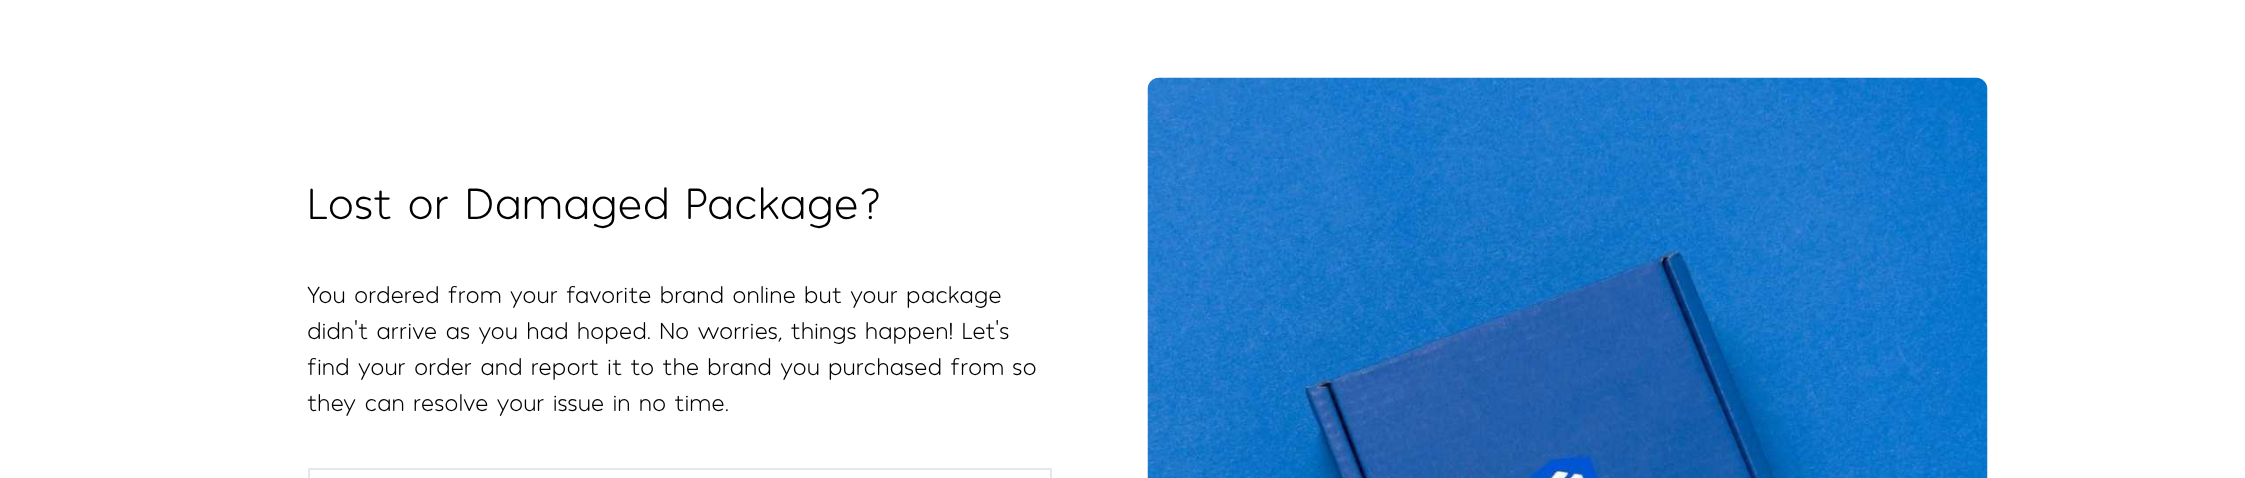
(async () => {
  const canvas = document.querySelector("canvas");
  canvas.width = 2245;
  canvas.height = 478;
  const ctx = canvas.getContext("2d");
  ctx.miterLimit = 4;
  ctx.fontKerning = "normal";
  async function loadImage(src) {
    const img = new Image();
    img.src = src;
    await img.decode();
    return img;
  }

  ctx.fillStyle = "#ffffff";
  ctx.fillRect(0, 0, 2245, 478);
  ctx.strokeStyle = "#e5e7eb";
  ctx.lineWidth = 2;
  ctx.strokeRect(309, 469, 742, 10);
  ctx.drawImage(await loadImage("img/1.png"), 1147, 77, 841, 401);
  ctx.font = "300 45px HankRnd";
  ctx.fillStyle = "#000000";
  ctx.fillText("Lost or Damaged Package?", 307, 219);
  ctx.font = "300 24px HankRnd";
  for (const [text, x, y] of [
    ["You ordered from your favorite brand online but your package", 307, 303],
    ["didn't arrive as you had hoped. No worries, things happen! Let's", 307, 339],
    ["find your order and report it to the brand you purchased from so", 307, 375],
    ["they can resolve your issue in no time.", 307, 411],
  ]) {
    ctx.fillText(text, x, y);
  }
})();
